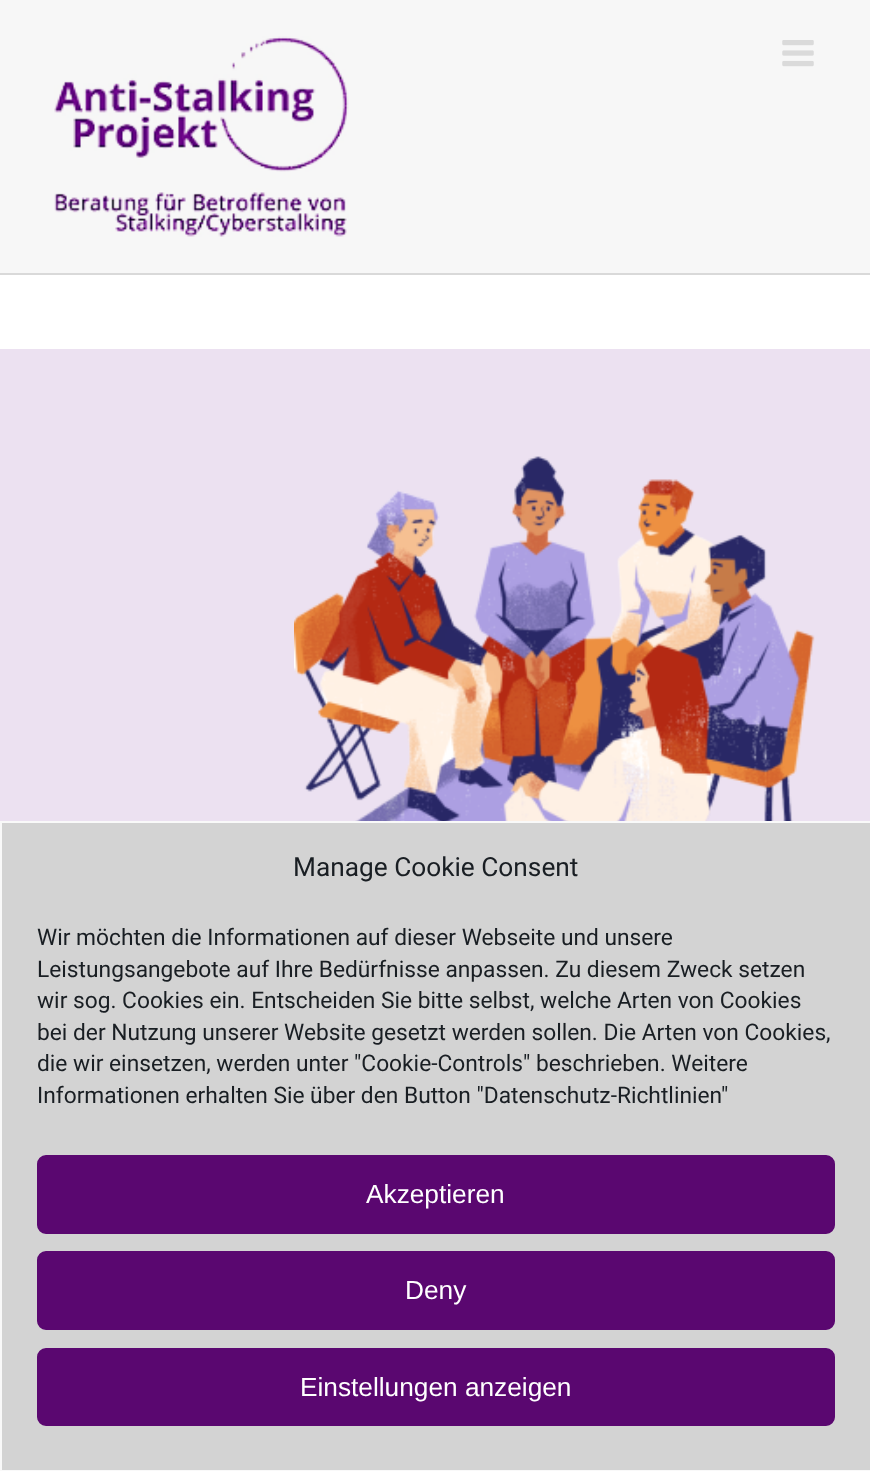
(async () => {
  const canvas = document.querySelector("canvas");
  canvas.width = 870;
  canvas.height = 1471;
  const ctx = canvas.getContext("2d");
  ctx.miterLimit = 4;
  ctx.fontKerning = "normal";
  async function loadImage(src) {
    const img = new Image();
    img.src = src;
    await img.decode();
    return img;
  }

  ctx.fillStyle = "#ece1f1";
  ctx.fillRect(0, 0, 870, 1471);
  ctx.fillStyle = "#d9d9d9";
  ctx.fillRect(0, 273, 870, 2);
  ctx.fillStyle = "#f7f7f7";
  ctx.fillRect(0, 0, 870, 273);
  ctx.drawImage(await loadImage("img/1.png"), 54, 36, 295, 201);
  ctx.drawImage(await loadImage("img/2.png"), 782, 40, 32, 27);
  ctx.fillStyle = "#ffffff";
  ctx.fillRect(0, 275, 870, 74);
  ctx.drawImage(await loadImage("img/3.png"), 294, 456, 521, 365);
  ctx.fillStyle = "#d3d3d3";
  ctx.beginPath();
  ctx.rect(1, 822, 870, 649);
  ctx.fill();
  ctx.strokeStyle = "#f9f9f9";
  ctx.lineWidth = 2;
  ctx.stroke();
  ctx.fillStyle = "#5a0770";
  ctx.beginPath();
  ctx.roundRect(38, 1156, 796, 77, 8);
  ctx.fill();
  ctx.strokeStyle = "#5a0770";
  ctx.stroke();
  ctx.beginPath();
  ctx.roundRect(38, 1252, 796, 77, 8);
  ctx.fill();
  ctx.stroke();
  ctx.beginPath();
  ctx.roundRect(38, 1349, 796, 76, 8);
  ctx.fill();
  ctx.stroke();
  ctx.font = "26.25px Roboto";
  ctx.fillStyle = "#191e23";
  ctx.fillText("Manage Cookie Consent", 293, 876);
  ctx.font = "22.75px Roboto";
  for (const [text, x, y] of [
    ["Wir möchten die Informationen auf dieser Webseite und unsere", 37, 945],
    ["Leistungsangebote auf Ihre Bedürfnisse anpassen. Zu diesem Zweck setzen", 37, 977],
    ["wir sog. Cookies ein. Entscheiden Sie bitte selbst, welche Arten von Cookies", 37, 1008],
    ["bei der Nutzung unserer Website gesetzt werden sollen. Die Arten von Cookies,", 37, 1040],
    ["die wir einsetzen, werden unter \"Cookie-Controls\" beschrieben. Weitere", 37, 1071],
    ["Informationen erhalten Sie über den Button \"Datenschutz-Richtlinien\"", 37, 1103],
  ]) {
    ctx.fillText(text, x, y);
  }
  ctx.font = "26.25px Liberation Sans";
  ctx.fillStyle = "#ffffff";
  for (const [text, x, y] of [
    ["Akzeptieren", 366, 1203],
    ["Deny", 405, 1299],
    ["Einstellungen anzeigen", 300, 1396],
  ]) {
    ctx.fillText(text, x, y);
  }
})();
